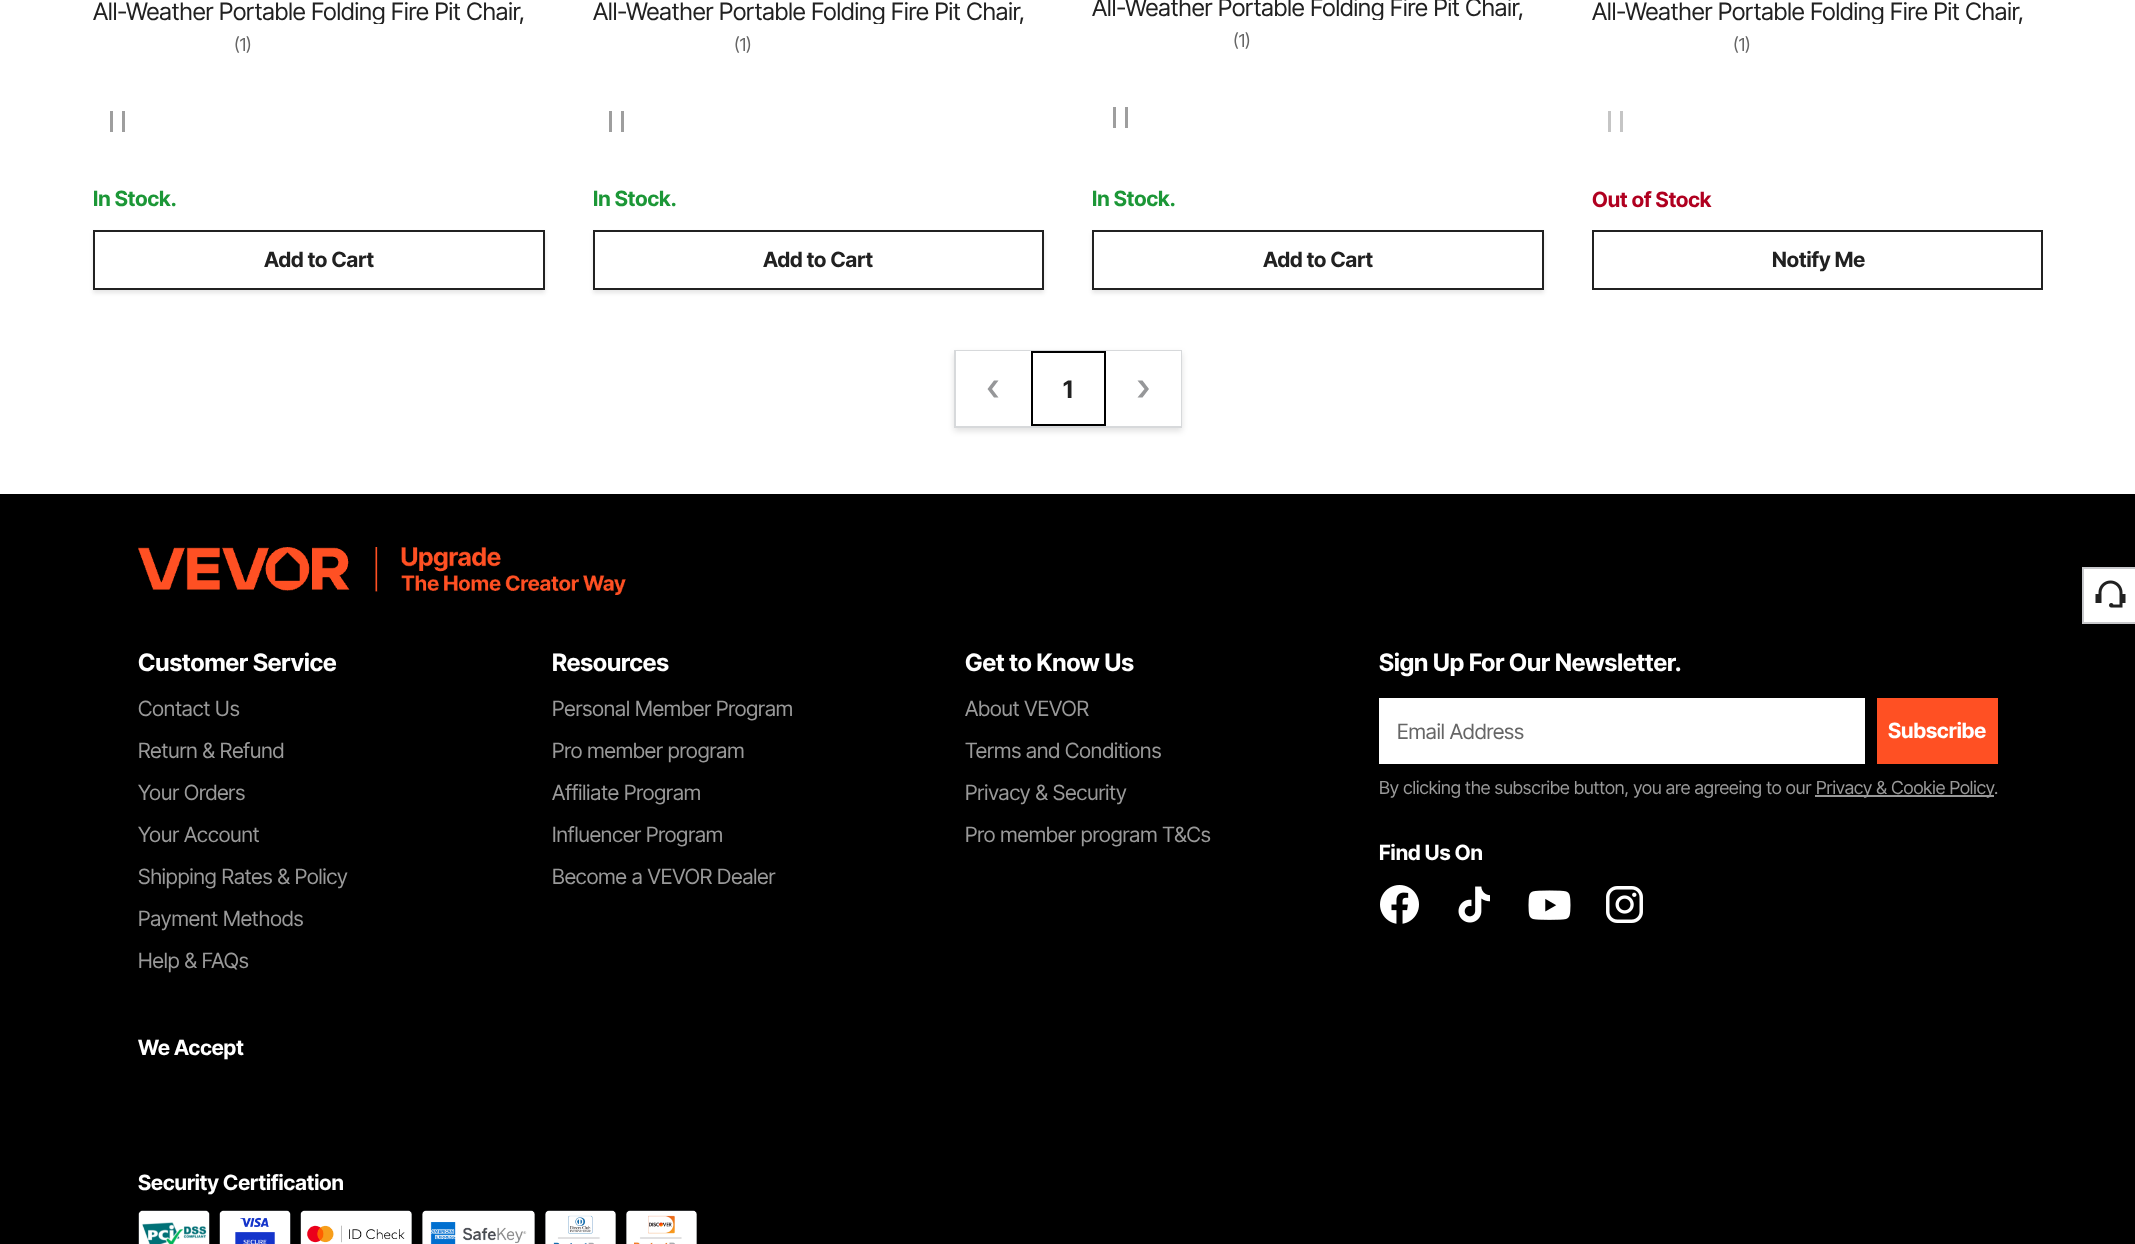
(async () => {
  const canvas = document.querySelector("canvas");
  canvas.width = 2135;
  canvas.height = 1244;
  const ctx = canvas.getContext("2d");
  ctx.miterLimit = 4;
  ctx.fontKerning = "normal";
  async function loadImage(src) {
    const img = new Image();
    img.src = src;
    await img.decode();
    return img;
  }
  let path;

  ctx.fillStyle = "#000000";
  ctx.fillRect(0, 0, 2135, 1244);
  for (const [x, y, w, h, color] of [
    [0, 0, 2135, 494, "#ffffff"],
    [110, 111, 3, 21, "#9e9e9e"],
    [122, 111, 3, 21, "#9e9e9e"],
  ]) {
    ctx.fillStyle = color;
    ctx.fillRect(x, y, w, h);
  }
  ctx.save();
  path = new Path2D("M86 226H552V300H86ZM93 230H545V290H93Z");
  ctx.clip(path, "evenodd");
  ctx.fillStyle = "rgba(0, 0, 0, 0.1)";
  ctx.filter = "blur(2px)";
  ctx.beginPath();
  ctx.rect(93, 233, 452, 60);
  ctx.fill();
  ctx.filter = "none";
  ctx.restore();
  ctx.strokeStyle = "rgba(0, 0, 0, 0.87)";
  ctx.lineWidth = 2;
  ctx.strokeRect(94, 231, 450, 58);
  ctx.fillRect(609, 111, 3, 21);
  ctx.fillRect(621, 111, 3, 21);
  ctx.save();
  path = new Path2D("M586 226H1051V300H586ZM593 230H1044V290H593Z");
  ctx.clip(path, "evenodd");
  ctx.fillStyle = "rgba(0, 0, 0, 0.1)";
  ctx.filter = "blur(2px)";
  ctx.beginPath();
  ctx.rect(593, 233, 451, 60);
  ctx.fill();
  ctx.filter = "none";
  ctx.restore();
  ctx.strokeRect(594, 231, 449, 58);
  ctx.fillRect(1113, 107, 3, 21);
  ctx.fillRect(1125, 107, 3, 21);
  ctx.save();
  path = new Path2D("M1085 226H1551V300H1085ZM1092 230H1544V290H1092Z");
  ctx.clip(path, "evenodd");
  ctx.fillStyle = "rgba(0, 0, 0, 0.1)";
  ctx.filter = "blur(2px)";
  ctx.beginPath();
  ctx.rect(1092, 233, 452, 60);
  ctx.fill();
  ctx.filter = "none";
  ctx.restore();
  ctx.strokeRect(1093, 231, 450, 58);
  ctx.fillStyle = "#c5c5c5";
  ctx.fillRect(1608, 111, 3, 21);
  ctx.fillRect(1620, 111, 3, 21);
  ctx.strokeStyle = "#212121";
  ctx.strokeRect(1593, 231, 449, 58);
  ctx.fillStyle = "rgba(0, 0, 0, 0.12)";
  ctx.filter = "blur(3px)";
  ctx.beginPath();
  ctx.rect(954, 353, 228, 78);
  ctx.fill();
  ctx.filter = "none";
  ctx.strokeStyle = "#d7d9db";
  ctx.strokeRect(955, 351, 226, 76);
  ctx.fillStyle = "#ffffff";
  ctx.fillRect(956, 351, 75, 75);
  ctx.fillStyle = "#969799";
  path = new Path2D("M998.5 380.5H994L987.5 389L994 397.5H998.5L992 389Z");
  ctx.fill(path);
  ctx.fillStyle = "#ffffff";
  ctx.beginPath();
  ctx.rect(1032, 352, 73, 73);
  ctx.fill();
  ctx.strokeStyle = "#000000";
  ctx.stroke();
  ctx.fillRect(1106, 351, 75, 75);
  ctx.fillStyle = "#969799";
  path = new Path2D("M1137.5 380.5H1142.5L1149 389L1142.5 397.5H1137.5L1144.5 389Z");
  ctx.fill(path);
  ctx.fillStyle = "#ffffff";
  ctx.beginPath();
  ctx.rect(2083, 568, 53, 55);
  ctx.fill();
  ctx.strokeStyle = "#c8c9cc";
  ctx.stroke();
  ctx.drawImage(await loadImage("img/1.png"), 2095, 580, 31, 28);
  ctx.drawImage(await loadImage("img/2.png"), 138, 547, 488, 48);
  ctx.drawImage(await loadImage("img/3.png"), 138, 1210, 72, 34);
  ctx.drawImage(await loadImage("img/4.png"), 219, 1210, 72, 34);
  ctx.drawImage(await loadImage("img/5.png"), 300, 1210, 112, 34);
  ctx.drawImage(await loadImage("img/6.png"), 422, 1210, 113, 34);
  ctx.drawImage(await loadImage("img/7.png"), 545, 1210, 71, 34);
  ctx.drawImage(await loadImage("img/8.png"), 626, 1210, 71, 34);
  for (const [x, y, w, h, color] of [
    [1379, 698, 486, 66, "#ffffff"],
    [1877, 698, 121, 66, "#ff5023"],
    [1815, 795, 179, 2, "#999999"],
  ]) {
    ctx.fillStyle = color;
    ctx.fillRect(x, y, w, h);
  }
  ctx.drawImage(await loadImage("img/9.png"), 1380, 885, 39, 39);
  ctx.drawImage(await loadImage("img/10.png"), 1458, 886, 32, 37);
  ctx.drawImage(await loadImage("img/11.png"), 1528, 890, 43, 30);
  ctx.drawImage(await loadImage("img/12.png"), 1606, 886, 37, 37);
  ctx.save();
  ctx.beginPath();
  ctx.rect(93, 0, 452, 24);
  ctx.clip();
  ctx.font = "24px Inter Tight";
  ctx.fillStyle = "#212121";
  ctx.fillText("All-Weather Portable Folding Fire Pit Chair,", 93, 20);
  ctx.restore();
  ctx.font = "18px Inter Tight";
  ctx.fillStyle = "#666666";
  ctx.fillText("(1)", 234, 51);
  ctx.font = "bold 21px Inter Tight";
  ctx.fillStyle = "#1c9737";
  ctx.fillText("In Stock.", 93, 206);
  ctx.fillStyle = "#212121";
  ctx.fillText("Add to Cart", 264, 267);
  ctx.save();
  ctx.beginPath();
  ctx.rect(593, 0, 451, 24);
  ctx.clip();
  ctx.font = "24px Inter Tight";
  ctx.fillText("All-Weather Portable Folding Fire Pit Chair,", 593, 20);
  ctx.restore();
  ctx.font = "18px Inter Tight";
  ctx.fillStyle = "#666666";
  ctx.fillText("(1)", 734, 51);
  ctx.font = "bold 21px Inter Tight";
  ctx.fillStyle = "#1c9737";
  ctx.fillText("In Stock.", 593, 206);
  ctx.fillStyle = "#212121";
  ctx.fillText("Add to Cart", 763, 267);
  ctx.save();
  ctx.beginPath();
  ctx.rect(1092, 0, 452, 20);
  ctx.clip();
  ctx.font = "24px Inter Tight";
  ctx.fillText("All-Weather Portable Folding Fire Pit Chair,", 1092, 16);
  ctx.restore();
  ctx.font = "18px Inter Tight";
  ctx.fillStyle = "#666666";
  ctx.fillText("(1)", 1233, 47);
  ctx.font = "bold 21px Inter Tight";
  ctx.fillStyle = "#1c9737";
  ctx.fillText("In Stock.", 1092, 206);
  ctx.fillStyle = "#212121";
  ctx.fillText("Add to Cart", 1263, 267);
  ctx.save();
  ctx.beginPath();
  ctx.rect(1592, 0, 451, 24);
  ctx.clip();
  ctx.font = "24px Inter Tight";
  ctx.fillText("All-Weather Portable Folding Fire Pit Chair,", 1592, 20);
  ctx.restore();
  ctx.font = "18px Inter Tight";
  ctx.fillStyle = "#666666";
  ctx.fillText("(1)", 1733, 51);
  ctx.font = "bold 21px Inter Tight";
  ctx.fillStyle = "#b00020";
  ctx.fillText("Out of Stock", 1592, 207);
  ctx.fillStyle = "#212121";
  ctx.fillText("Notify Me", 1772, 267);
  ctx.font = "bold 24px Inter Tight";
  ctx.fillText("1", 1063, 398);
  ctx.fillStyle = "#ffffff";
  ctx.fillText("Customer Service", 138, 671);
  ctx.font = "21px Inter Tight";
  ctx.fillStyle = "#999999";
  for (const [text, x, y] of [
    ["Contact Us", 138, 716],
    ["Return & Refund", 138, 758],
    ["Your Orders", 138, 800],
    ["Your Account", 138, 842],
    ["Shipping Rates & Policy", 138, 884],
    ["Payment Methods", 138, 926],
    ["Help & FAQs", 138, 968],
  ]) {
    ctx.fillText(text, x, y);
  }
  ctx.font = "bold 24px Inter Tight";
  ctx.fillStyle = "#ffffff";
  ctx.fillText("Resources", 552, 671);
  ctx.font = "21px Inter Tight";
  ctx.fillStyle = "#999999";
  for (const [text, x, y] of [
    ["Personal Member Program", 552, 716],
    ["Pro member program", 552, 758],
    ["Affiliate Program", 552, 800],
    ["Influencer Program", 552, 842],
    ["Become a VEVOR Dealer", 552, 884],
  ]) {
    ctx.fillText(text, x, y);
  }
  ctx.font = "bold 24px Inter Tight";
  ctx.fillStyle = "#ffffff";
  ctx.fillText("Get to Know Us", 965, 671);
  ctx.font = "21px Inter Tight";
  ctx.fillStyle = "#999999";
  for (const [text, x, y] of [
    ["About VEVOR", 965, 716],
    ["Terms and Conditions", 965, 758],
    ["Privacy & Security", 965, 800],
    ["Pro member program T&Cs", 965, 842],
  ]) {
    ctx.fillText(text, x, y);
  }
  ctx.font = "bold 21px Inter Tight";
  ctx.fillStyle = "#ffffff";
  ctx.fillText("We Accept", 138, 1055);
  ctx.fillText("Security Certification", 138, 1190);
  ctx.font = "bold 24px Inter Tight";
  ctx.fillText("Sign Up For Our Newsletter.", 1379, 671);
  ctx.font = "21px Inter Tight";
  ctx.fillStyle = "#666666";
  ctx.fillText("Email Address", 1397, 739);
  ctx.font = "bold 21px Inter Tight";
  ctx.fillStyle = "#ffffff";
  ctx.fillText("Subscribe", 1888, 738);
  ctx.font = "18px Inter Tight";
  ctx.fillStyle = "#999999";
  for (const [text, x, y] of [
    ["By clicking the subscribe button, you are agreeing to our", 1379, 794],
    ["Privacy & Cookie Policy", 1816, 794],
    [".", 1994, 794],
  ]) {
    ctx.fillText(text, x, y);
  }
  ctx.font = "bold 21px Inter Tight";
  ctx.fillStyle = "#ffffff";
  ctx.fillText("Find Us On", 1379, 860);
})();
